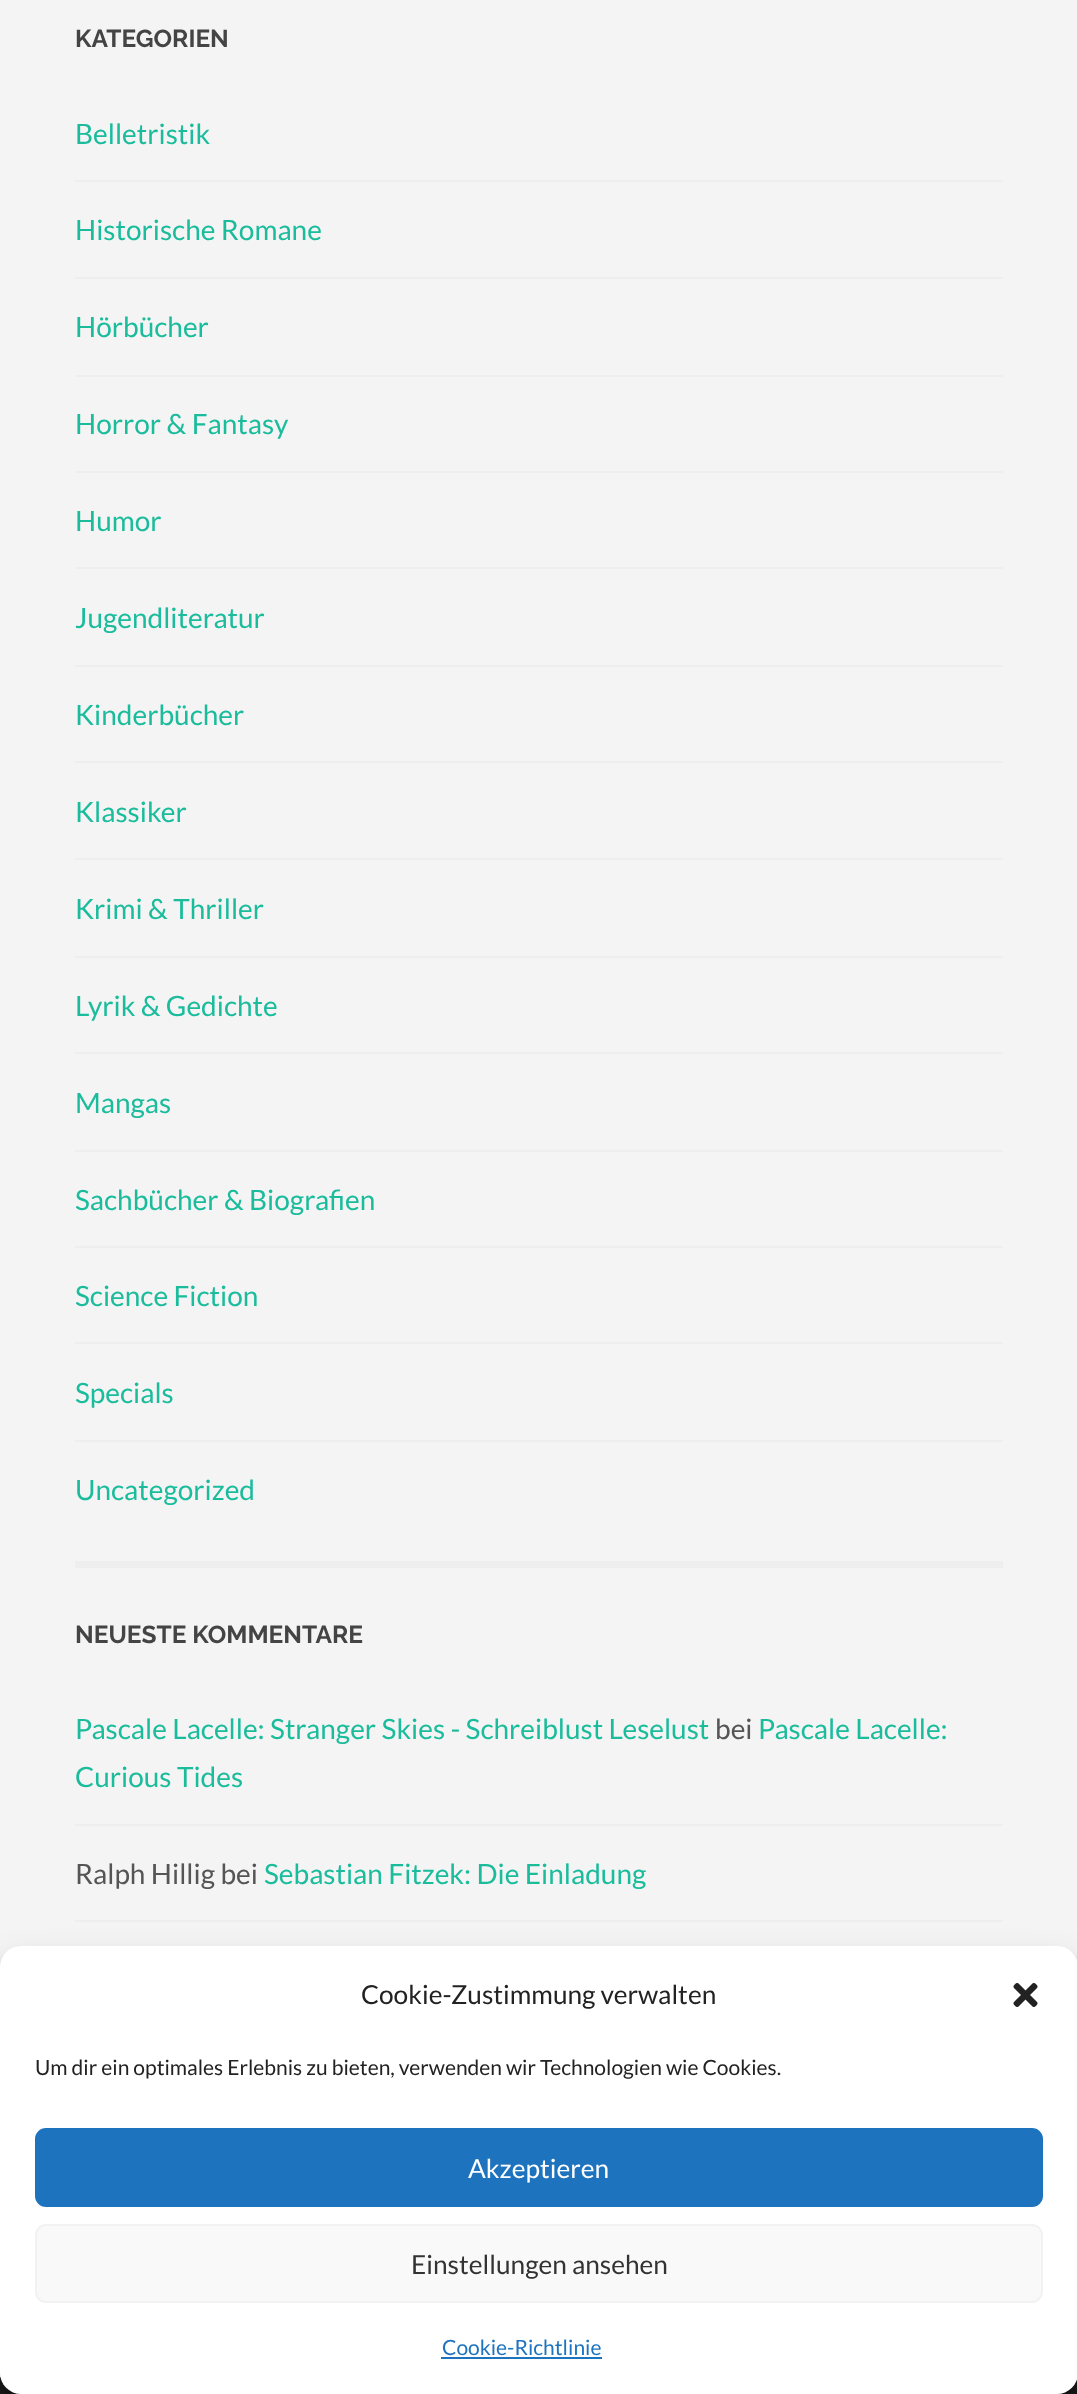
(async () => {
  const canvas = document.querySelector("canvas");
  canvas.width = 1077;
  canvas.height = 2394;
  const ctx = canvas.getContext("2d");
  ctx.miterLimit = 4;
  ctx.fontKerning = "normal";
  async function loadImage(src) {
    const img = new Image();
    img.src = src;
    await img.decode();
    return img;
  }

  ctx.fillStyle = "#f4f4f4";
  ctx.fillRect(0, 0, 1077, 2394);
  for (const [x, y, w, h, color] of [
    [75, 1561, 928, 7, "#eeeeee"],
    [75, 180, 928, 2, "#eeeeee"],
    [75, 277, 928, 2, "#eeeeee"],
    [75, 375, 928, 2, "#eeeeee"],
    [75, 471, 928, 2, "#eeeeee"],
    [75, 567, 928, 2, "#eeeeee"],
    [75, 665, 928, 2, "#eeeeee"],
    [75, 761, 928, 2, "#eeeeee"],
    [75, 858, 928, 2, "#eeeeee"],
    [75, 956, 928, 2, "#eeeeee"],
    [75, 1052, 928, 2, "#eeeeee"],
    [75, 1150, 928, 2, "#eeeeee"],
    [75, 1246, 928, 2, "#eeeeee"],
    [75, 1342, 928, 2, "#eeeeee"],
    [75, 1440, 928, 2, "#eeeeee"],
    [75, 1824, 928, 2, "#eeeeee"],
    [75, 1920, 928, 2, "#eeeeee"],
    [0, 2377, 1077, 17, "#1d1d1d"],
  ]) {
    ctx.fillStyle = color;
    ctx.fillRect(x, y, w, h);
  }
  ctx.fillStyle = "rgba(0, 0, 0, 0.23)";
  ctx.filter = "blur(5px)";
  ctx.beginPath();
  ctx.roundRect(0, 1957, 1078, 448, 21);
  ctx.fill();
  ctx.filter = "none";
  ctx.fillStyle = "rgba(0, 0, 0, 0.19)";
  ctx.filter = "blur(17.5px)";
  ctx.beginPath();
  ctx.roundRect(0, 1964, 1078, 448, 21);
  ctx.fill();
  ctx.filter = "none";
  ctx.fillStyle = "#ffffff";
  ctx.beginPath();
  ctx.roundRect(0, 1946, 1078, 448, 21);
  ctx.fill();
  ctx.drawImage(await loadImage("img/1.png"), 1013, 1983, 25, 24);
  ctx.fillStyle = "#1e73be";
  ctx.beginPath();
  ctx.roundRect(36, 2129, 1006, 77, 10);
  ctx.fill();
  ctx.strokeStyle = "#1e73be";
  ctx.lineWidth = 2;
  ctx.stroke();
  ctx.fillStyle = "#f9f9f9";
  ctx.beginPath();
  ctx.roundRect(36, 2225, 1006, 77, 10);
  ctx.fill();
  ctx.strokeStyle = "#f2f2f2";
  ctx.stroke();
  ctx.fillStyle = "#1e73be";
  ctx.fillRect(441, 2357, 161, 2);
  ctx.font = "bold 24.5px Raleway";
  ctx.fillStyle = "#444444";
  ctx.fillText("KATEGORIEN", 75, 47);
  ctx.font = "28px Lato";
  ctx.fillStyle = "#1abc9c";
  for (const [text, x, y] of [
    ["Belletristik", 75, 144],
    ["Historische Romane", 75, 240],
    ["Hörbücher", 75, 337],
    ["Horror & Fantasy", 75, 434],
    ["Humor", 75, 531],
    ["Jugendliteratur", 75, 628],
    ["Kinderbücher", 75, 725],
    ["Klassiker", 75, 822],
    ["Krimi & Thriller", 75, 919],
    ["Lyrik & Gedichte", 75, 1016],
    ["Mangas", 75, 1113],
    ["Sachbücher & Biografien", 75, 1210],
    ["Science Fiction", 75, 1306],
    ["Specials", 75, 1403],
    ["Uncategorized", 75, 1500],
  ]) {
    ctx.fillText(text, x, y);
  }
  ctx.font = "bold 24.5px Raleway";
  ctx.fillStyle = "#444444";
  ctx.fillText("NEUESTE KOMMENTARE", 75, 1643);
  ctx.font = "28px Lato";
  ctx.fillStyle = "#1abc9c";
  ctx.fillText("Pascale Lacelle: Stranger Skies - Schreiblust Leselust", 75, 1739);
  ctx.fillStyle = "#555555";
  ctx.fillText("bei", 715, 1739);
  ctx.fillStyle = "#1abc9c";
  ctx.fillText("Pascale Lacelle:", 758, 1739);
  ctx.fillText("Curious Tides", 75, 1787);
  ctx.fillStyle = "#555555";
  ctx.fillText("Ralph Hillig bei", 75, 1884);
  ctx.fillStyle = "#1abc9c";
  ctx.fillText("Sebastian Fitzek: Die Einladung", 264, 1884);
  ctx.font = "26.25px Lato";
  ctx.fillStyle = "#222222";
  ctx.fillText("Cookie-Zustimmung verwalten", 361, 2004);
  ctx.font = "21px Lato";
  ctx.fillText("Um dir ein optimales Erlebnis zu bieten, verwenden wir Technologien wie Cookies.", 35, 2075);
  ctx.font = "26.25px Lato";
  ctx.fillStyle = "#ffffff";
  ctx.fillText("Akzeptieren", 468, 2178);
  ctx.fillStyle = "#333333";
  ctx.fillText("Einstellungen ansehen", 411, 2274);
  ctx.font = "21px Lato";
  ctx.fillStyle = "#1e73be";
  ctx.fillText("Cookie-Richtlinie", 442, 2355);
})();
